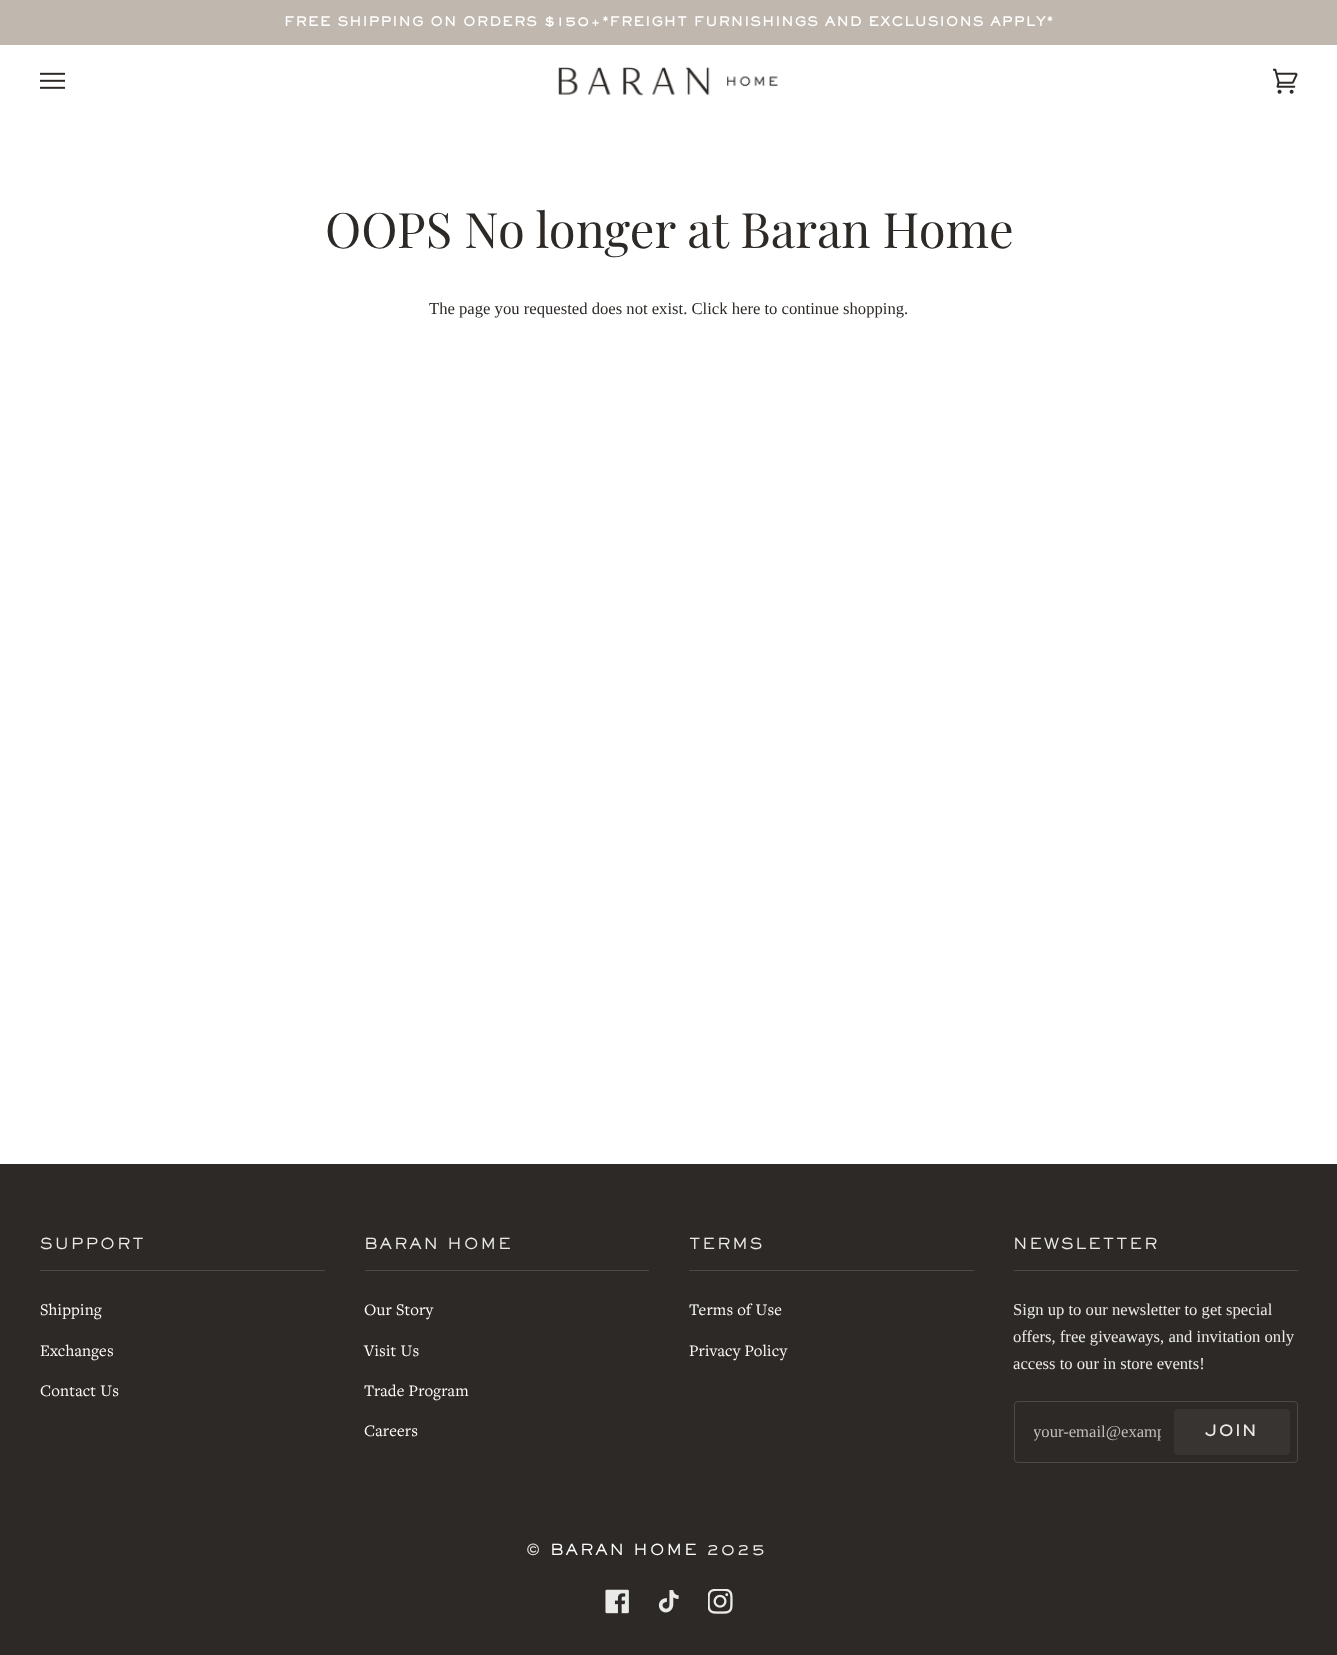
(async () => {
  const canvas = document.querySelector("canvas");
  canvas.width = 1337;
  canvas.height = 1655;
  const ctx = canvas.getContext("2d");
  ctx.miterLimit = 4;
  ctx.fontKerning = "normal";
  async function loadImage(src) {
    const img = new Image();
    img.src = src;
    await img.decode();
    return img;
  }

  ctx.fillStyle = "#ffffff";
  ctx.fillRect(0, 0, 1337, 1655);
  ctx.fillStyle = "#c0b8ae";
  ctx.fillRect(0, 0, 1337, 45);
  ctx.drawImage(await loadImage("img/1.png"), 40, 72, 25, 17);
  ctx.drawImage(await loadImage("img/2.png"), 558, 67, 220, 29);
  ctx.drawImage(await loadImage("img/3.png"), 1273, 68, 25, 26);
  for (const [x, y, w, h, color] of [
    [0, 1164, 1337, 491, "#2d2926"],
    [40, 1270, 285, 1, "#4d4947"],
    [365, 1270, 284, 1, "#4d4947"],
    [689, 1270, 285, 1, "#4d4947"],
    [1014, 1270, 284, 1, "#4d4947"],
  ]) {
    ctx.fillStyle = color;
    ctx.fillRect(x, y, w, h);
  }
  ctx.beginPath();
  ctx.roundRect(1014.5, 1401.5, 283, 61, 3.5);
  ctx.strokeStyle = "#4d4947";
  ctx.stroke();
  ctx.fillStyle = "#383431";
  ctx.beginPath();
  ctx.roundRect(1174, 1409, 116, 46, 4);
  ctx.fill();
  ctx.drawImage(await loadImage("img/4.png"), 605, 1589, 24, 25);
  ctx.drawImage(await loadImage("img/5.png"), 658, 1590, 21, 23);
  ctx.drawImage(await loadImage("img/6.png"), 708, 1589, 25, 25);
  ctx.letterSpacing = "1.25px";
  ctx.font = "bold 12.5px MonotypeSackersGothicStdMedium";
  ctx.fillStyle = "#ffffff";
  ctx.fillText("FREE SHIPPING ON ORDERS $150+*FREIGHT FURNISHINGS AND EXCLUSIONS APPLY*", 284, 26);
  ctx.letterSpacing = "0px";
  ctx.font = "48.9px Playfair Display";
  ctx.fillStyle = "#2d2926";
  ctx.fillText("OOPS No longer at Baran Home", 325, 248);
  ctx.font = "16.65px Liberation Serif";
  ctx.fillText("The page you requested does not exist. Click here to continue shopping.", 429, 314);
  ctx.letterSpacing = "1.9px";
  ctx.font = "500 15px MonotypeSackersGothicStdMedium";
  ctx.fillStyle = "#eaeae9";
  ctx.fillText("SUPPORT", 40, 1249);
  ctx.letterSpacing = "0.2px";
  ctx.font = "16.65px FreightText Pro";
  ctx.fillStyle = "#ffffff";
  for (const [text, x, y] of [
    ["Shipping", 40, 1315],
    ["Exchanges", 40, 1356],
    ["Contact Us", 40, 1396],
  ]) {
    ctx.fillText(text, x, y);
  }
  ctx.letterSpacing = "1.9px";
  ctx.font = "500 15px MonotypeSackersGothicStdMedium";
  ctx.fillStyle = "#eaeae9";
  ctx.fillText("BARAN HOME", 364, 1249);
  ctx.letterSpacing = "0.2px";
  ctx.font = "16.65px FreightText Pro";
  ctx.fillStyle = "#ffffff";
  for (const [text, x, y] of [
    ["Our Story", 364, 1315],
    ["Visit Us", 364, 1356],
    ["Trade Program", 364, 1396],
    ["Careers", 364, 1436],
  ]) {
    ctx.fillText(text, x, y);
  }
  ctx.letterSpacing = "1.9px";
  ctx.font = "500 15px MonotypeSackersGothicStdMedium";
  ctx.fillStyle = "#eaeae9";
  ctx.fillText("TERMS", 689, 1249);
  ctx.letterSpacing = "0.2px";
  ctx.font = "16.65px FreightText Pro";
  ctx.fillStyle = "#ffffff";
  ctx.fillText("Terms of Use", 689, 1315);
  ctx.fillText("Privacy Policy", 689, 1356);
  ctx.letterSpacing = "1.9px";
  ctx.font = "500 15px MonotypeSackersGothicStdMedium";
  ctx.fillStyle = "#eaeae9";
  ctx.fillText("NEWSLETTER", 1013, 1249);
  ctx.letterSpacing = "0px";
  ctx.font = "16.65px Liberation Serif";
  for (const [text, x, y] of [
    ["Sign up to our newsletter to get special", 1013, 1315],
    ["offers, free giveaways, and invitation only", 1013, 1342],
    ["access to our in store events!", 1013, 1369],
  ]) {
    ctx.fillText(text, x, y);
  }
  ctx.save();
  ctx.beginPath();
  ctx.rect(1034, 1423, 127, 20);
  ctx.clip();
  ctx.fillStyle = "#c0bfbe";
  ctx.fillText("your-email@examp", 1033, 1437);
  ctx.restore();
  ctx.letterSpacing = "1.25px";
  ctx.font = "bold 15px MonotypeSackersGothicStdMedium";
  ctx.fillText("JOIN", 1205, 1436);
  ctx.letterSpacing = "1.9px";
  ctx.font = "500 15px MonotypeSackersGothicStdMedium";
  ctx.fillText("©", 526, 1555);
  ctx.fillStyle = "#ffffff";
  ctx.fillText("BARAN HOME", 550, 1555);
  ctx.fillStyle = "#eaeae9";
  ctx.fillText("2025", 706, 1555);
})();
